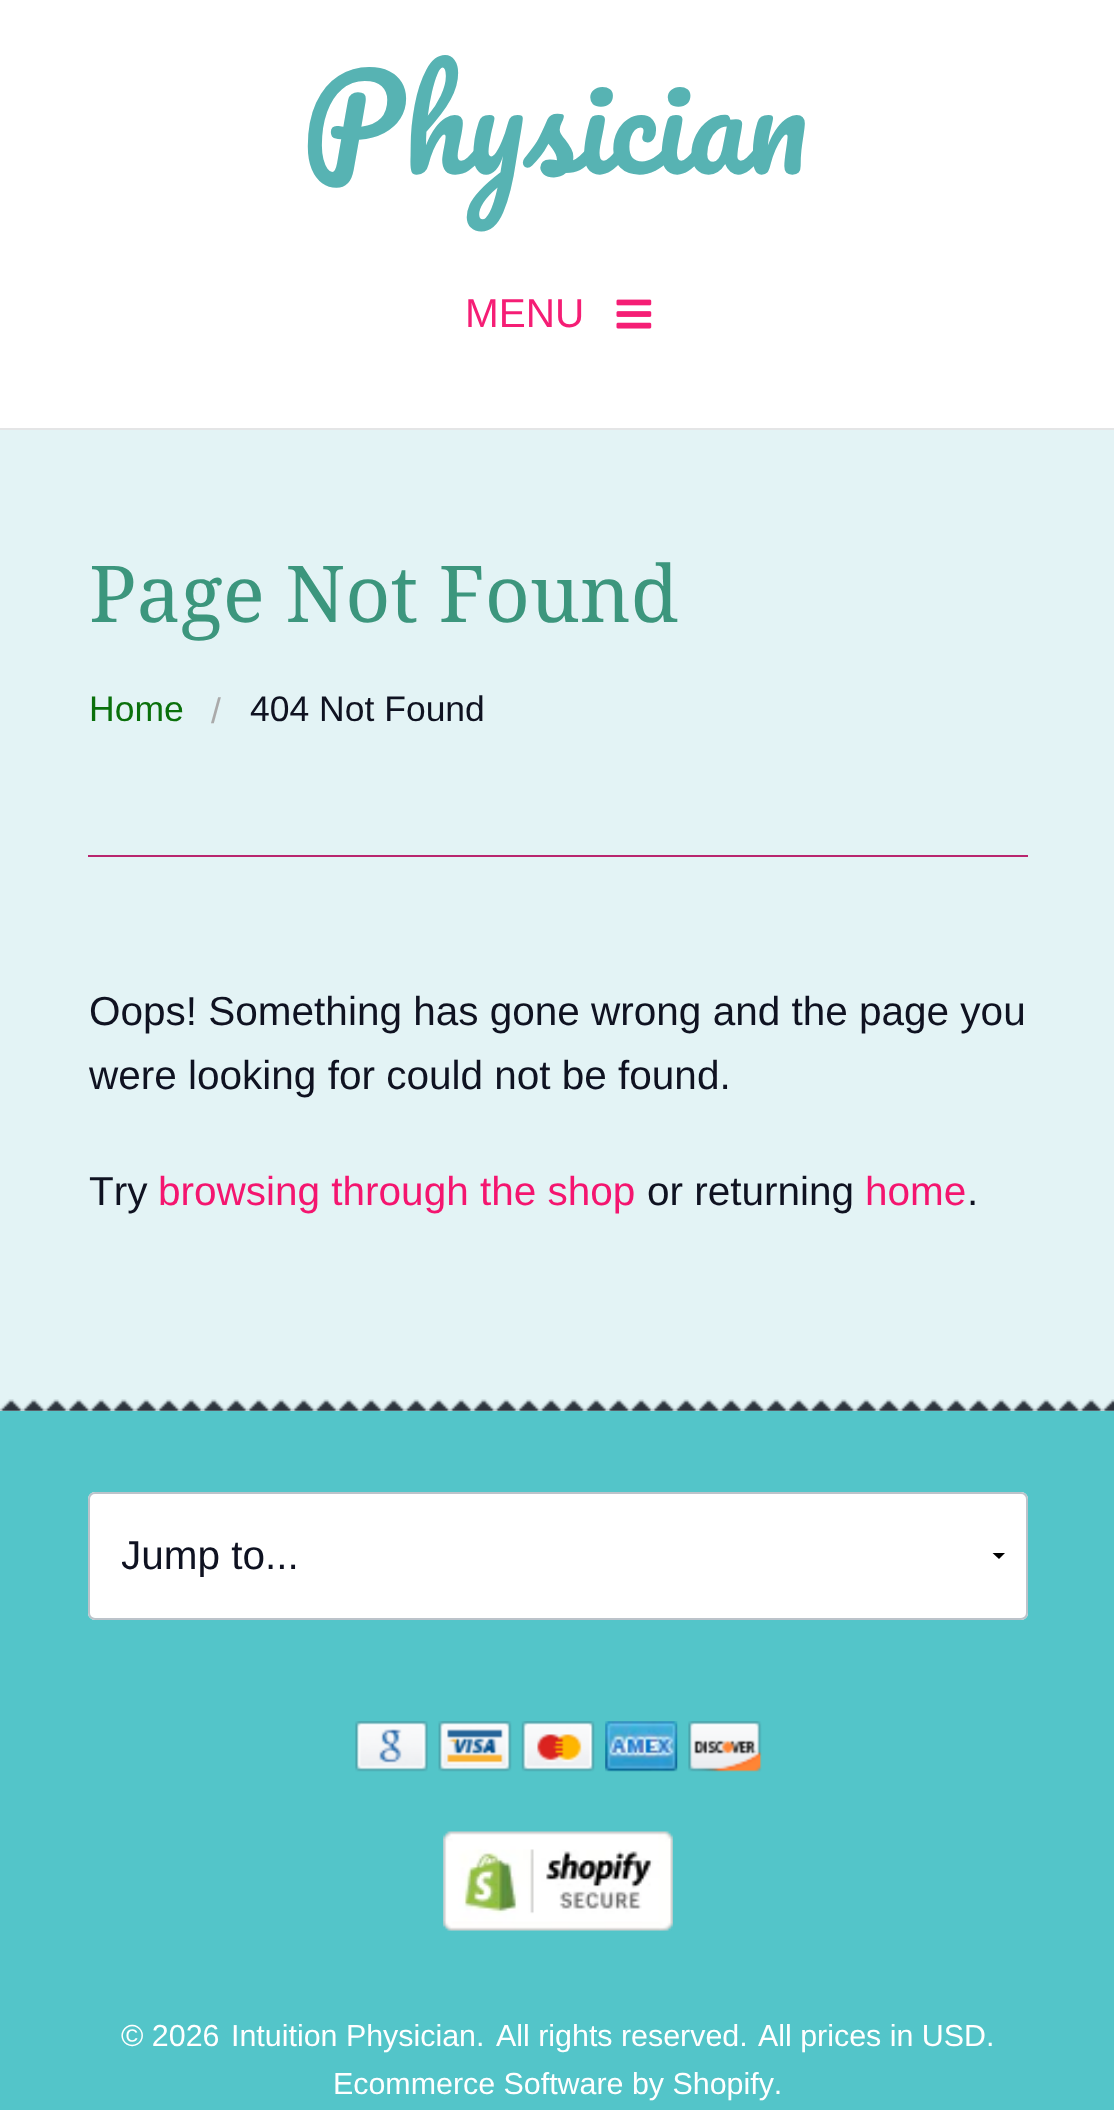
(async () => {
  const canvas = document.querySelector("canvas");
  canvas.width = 1114;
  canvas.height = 2110;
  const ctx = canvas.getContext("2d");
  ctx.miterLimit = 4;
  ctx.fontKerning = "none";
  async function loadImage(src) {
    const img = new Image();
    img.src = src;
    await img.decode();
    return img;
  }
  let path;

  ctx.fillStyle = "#53c5c9";
  ctx.fillRect(0, 0, 1114, 2110);
  ctx.fillStyle = "#ffffff";
  ctx.fillRect(0, 0, 1114, 428);
  ctx.fillStyle = "#e4e5e6";
  ctx.fillRect(0, 428, 1114, 2);
  ctx.drawImage(await loadImage("img/1.png"), 616, 299, 36, 30);
  ctx.fillStyle = "#e3f3f5";
  ctx.fillRect(0, 430, 1114, 981);
  ctx.fillStyle = "#b9256e";
  ctx.fillRect(88, 855, 940, 2);
  ctx.drawImage(await loadImage("img/2.png"), 0, 1399, 1114, 12);
  ctx.fillStyle = "#ffffff";
  ctx.beginPath();
  ctx.roundRect(88, 1492, 940, 128, 7);
  ctx.fill();
  ctx.save();
  ctx.beginPath();
  ctx.rect(992, 1553, 14, 7);
  ctx.clip();
  ctx.fillStyle = "#000000";
  path = new Path2D("M1005.5 1552.5L999 1559L992 1552.5Z");
  ctx.fill(path);
  ctx.restore();
  ctx.beginPath();
  ctx.roundRect(89, 1493, 938, 126, 6);
  ctx.strokeStyle = "#bcc3ca";
  ctx.lineWidth = 2;
  ctx.stroke();
  ctx.drawImage(await loadImage("img/3.png"), 355, 1721, 73, 51);
  ctx.drawImage(await loadImage("img/4.png"), 438, 1721, 74, 51);
  ctx.drawImage(await loadImage("img/5.png"), 521, 1721, 74, 51);
  ctx.drawImage(await loadImage("img/6.png"), 605, 1721, 73, 51);
  ctx.drawImage(await loadImage("img/7.png"), 688, 1721, 74, 51);
  ctx.drawImage(await loadImage("img/8.png"), 443, 1831, 230, 100);
  ctx.font = "126.5px Pacifico";
  ctx.fillStyle = "#57b3b3";
  ctx.fillText("Physician", 302, 174);
  ctx.font = "40.5px Liberation Sans";
  ctx.fillStyle = "#f51e75";
  ctx.fillText("MENU", 465, 327);
  ctx.font = "78.5px Droid Serif";
  ctx.fillStyle = "#3c967d";
  ctx.fillText("Page Not Found", 89, 622);
  ctx.font = "35.5px Liberation Sans";
  ctx.fillStyle = "#0a700b";
  ctx.fillText("Home", 89, 721);
  ctx.fillStyle = "#aaaaaa";
  ctx.fillText("/", 211, 723);
  ctx.fillStyle = "#0f1221";
  ctx.fillText("404 Not Found", 250, 721);
  ctx.font = "40.5px Liberation Sans";
  for (const [text, x, y] of [
    ["Oops! Something has gone wrong and the page you", 89, 1025],
    ["were looking for could not be found.", 89, 1089],
    ["Try", 89, 1205],
  ]) {
    ctx.fillText(text, x, y);
  }
  ctx.fillStyle = "#f4156f";
  ctx.fillText("browsing through the shop", 158, 1205);
  ctx.fillStyle = "#0f1221";
  ctx.fillText("or returning", 647, 1205);
  ctx.fillStyle = "#f4156f";
  ctx.fillText("home", 865, 1205);
  ctx.fillStyle = "#0f1221";
  ctx.fillText(".", 967, 1205);
  ctx.save();
  ctx.beginPath();
  ctx.rect(122, 1532, 843, 45);
  ctx.clip();
  ctx.fillText("Jump to...", 121, 1569);
  ctx.restore();
  ctx.font = "30.4px Liberation Sans";
  ctx.fillStyle = "#ffffff";
  for (const [text, x, y] of [
    ["© 2026", 121, 2046],
    ["Intuition Physician.", 231, 2046],
    ["All rights reserved.", 496, 2046],
    ["All prices in USD.", 758, 2046],
    ["Ecommerce Software by Shopify.", 333, 2094],
  ]) {
    ctx.fillText(text, x, y);
  }
})();
